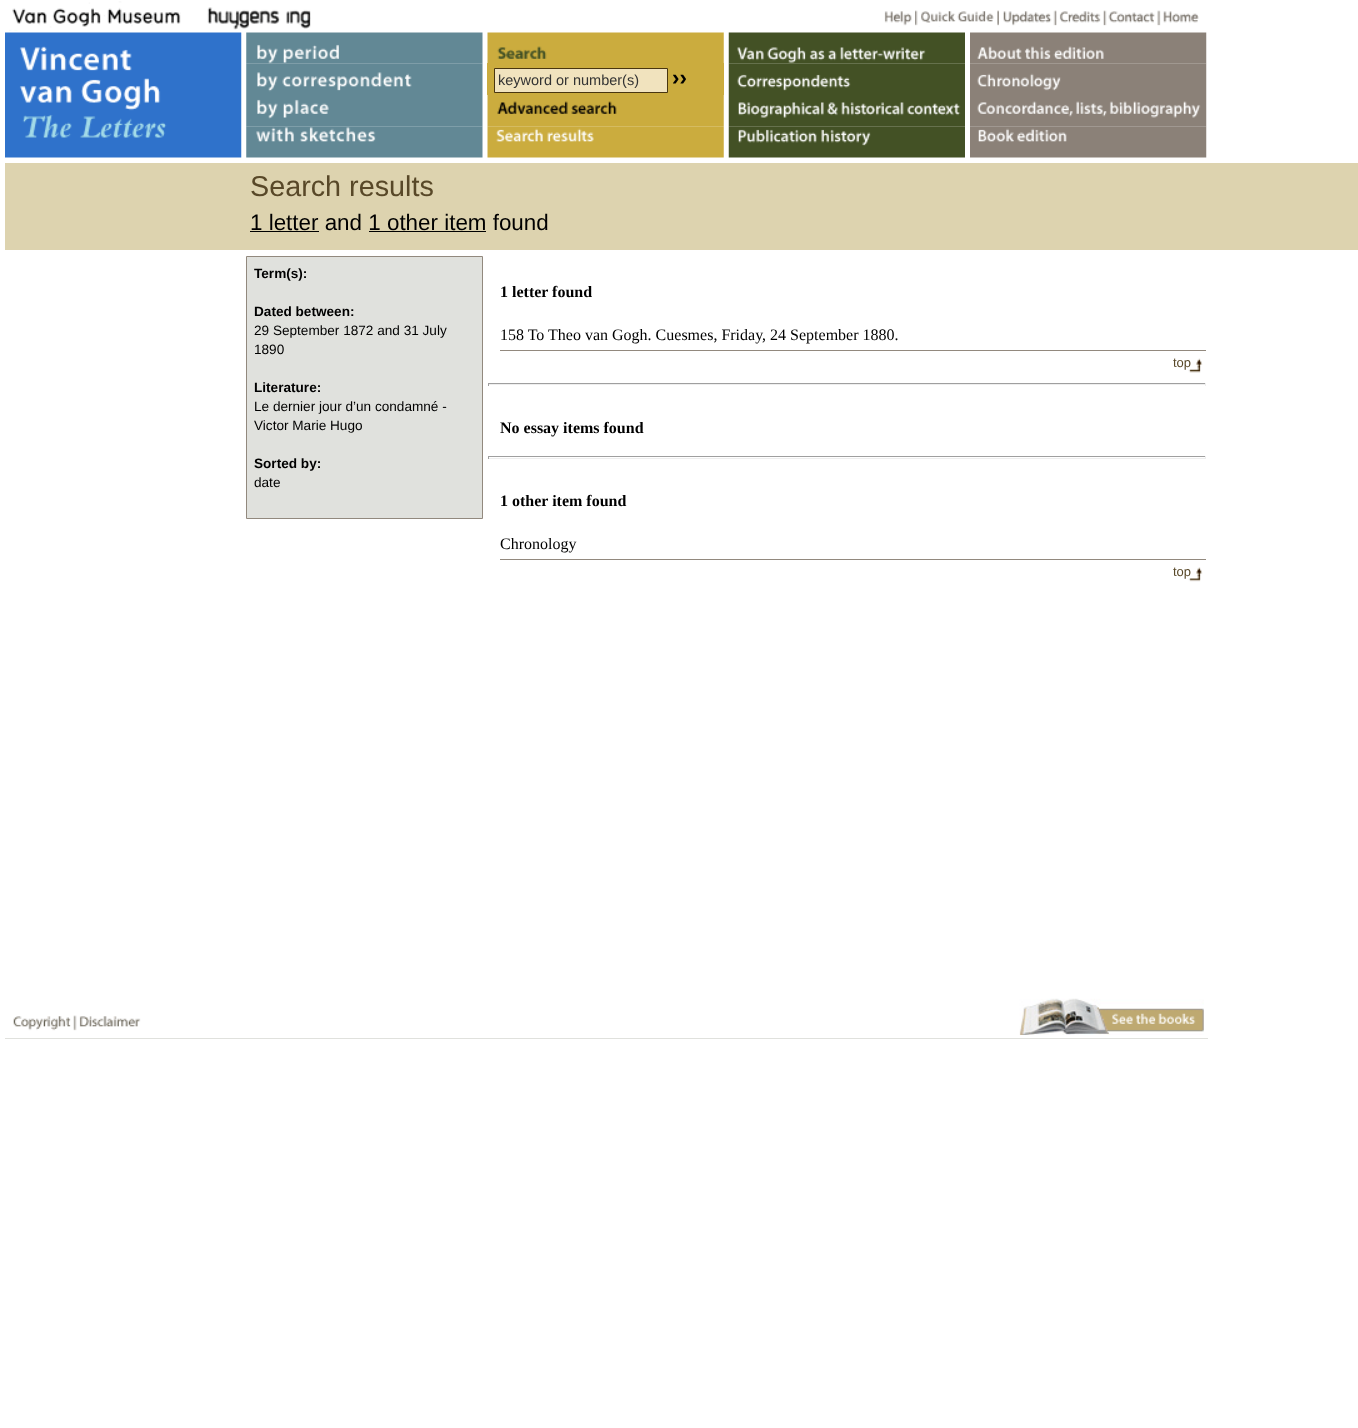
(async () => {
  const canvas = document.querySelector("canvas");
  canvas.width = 1358;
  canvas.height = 1428;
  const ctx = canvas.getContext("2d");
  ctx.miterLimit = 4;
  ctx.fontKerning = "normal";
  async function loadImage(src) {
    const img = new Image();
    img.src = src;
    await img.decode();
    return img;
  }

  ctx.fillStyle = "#ffffff";
  ctx.fillRect(0, 0, 1358, 1428);
  ctx.drawImage(await loadImage("img/1.png"), 9, 1, 172, 30);
  ctx.drawImage(await loadImage("img/2.png"), 207, 7, 104, 23);
  ctx.drawImage(await loadImage("img/3.png"), 884, 11, 28, 15);
  ctx.drawImage(await loadImage("img/4.png"), 915, 10, 79, 17);
  ctx.drawImage(await loadImage("img/5.png"), 997, 10, 55, 16);
  ctx.drawImage(await loadImage("img/6.png"), 1053, 10, 46, 16);
  ctx.drawImage(await loadImage("img/7.png"), 1098, 10, 57, 16);
  ctx.drawImage(await loadImage("img/8.png"), 1157, 10, 42, 16);
  ctx.drawImage(await loadImage("img/9.png"), 5, 32, 237, 126);
  ctx.drawImage(await loadImage("img/10.png"), 246, 32, 237, 32);
  ctx.drawImage(await loadImage("img/11.png"), 246, 63, 237, 32);
  ctx.drawImage(await loadImage("img/12.png"), 246, 95, 237, 32);
  ctx.drawImage(await loadImage("img/13.png"), 246, 126, 237, 32);
  ctx.drawImage(await loadImage("img/14.png"), 487, 32, 237, 31);
  ctx.fillStyle = "#cbac3e";
  ctx.fillRect(487, 63, 237, 32);
  ctx.fillStyle = "#f1e3be";
  ctx.beginPath();
  ctx.rect(494.5, 68.5, 173, 24);
  ctx.fill();
  ctx.strokeStyle = "#493610";
  ctx.stroke();
  ctx.drawImage(await loadImage("img/15.png"), 487, 95, 237, 32);
  ctx.drawImage(await loadImage("img/16.png"), 487, 126, 237, 32);
  ctx.drawImage(await loadImage("img/17.png"), 728, 32, 237, 32);
  ctx.drawImage(await loadImage("img/18.png"), 728, 63, 237, 32);
  ctx.drawImage(await loadImage("img/19.png"), 728, 95, 237, 32);
  ctx.drawImage(await loadImage("img/20.png"), 728, 126, 237, 32);
  ctx.drawImage(await loadImage("img/21.png"), 970, 32, 237, 32);
  ctx.drawImage(await loadImage("img/22.png"), 970, 63, 237, 32);
  ctx.drawImage(await loadImage("img/23.png"), 970, 95, 237, 32);
  ctx.drawImage(await loadImage("img/24.png"), 970, 126, 237, 32);
  for (const [x, y, w, h, color] of [
    [5, 163, 1353, 87, "#ddd3af"],
    [250, 231, 69, 1, "#000000"],
    [369, 231, 117, 1, "#000000"],
  ]) {
    ctx.fillStyle = color;
    ctx.fillRect(x, y, w, h);
  }
  ctx.fillStyle = "#e0e1dd";
  ctx.beginPath();
  ctx.rect(246.5, 256.5, 236, 262);
  ctx.fill();
  ctx.strokeStyle = "#92897e";
  ctx.stroke();
  ctx.fillStyle = "#92897e";
  ctx.fillRect(500, 350, 706, 1);
  ctx.drawImage(await loadImage("img/25.png"), 1188, 358, 15, 15);
  for (const [x, y, w, h, color] of [
    [488, 383, 718, 1, "#9f9f9f"],
    [1205, 383, 1, 3, "#eeeeee"],
    [488, 384, 718, 1, "#eeeeee"],
    [488, 383, 1, 3, "#9f9f9f"],
    [488, 456, 718, 1, "#9f9f9f"],
    [1205, 456, 1, 3, "#eeeeee"],
    [488, 458, 718, 1, "#eeeeee"],
    [488, 456, 1, 3, "#9f9f9f"],
    [500, 559, 706, 1, "#92897e"],
  ]) {
    ctx.fillStyle = color;
    ctx.fillRect(x, y, w, h);
  }
  ctx.drawImage(await loadImage("img/26.png"), 1188, 567, 15, 15);
  ctx.fillStyle = "#e0e1dd";
  ctx.fillRect(5, 1038, 1203, 1);
  ctx.drawImage(await loadImage("img/27.png"), 13, 1016, 55, 15);
  ctx.drawImage(await loadImage("img/28.png"), 67, 1015, 74, 16);
  ctx.drawImage(await loadImage("img/29.png"), 1019, 998, 185, 37);
  ctx.font = "14.5px Liberation Sans";
  ctx.fillStyle = "#333333";
  ctx.fillText("keyword or number(s)", 498, 85);
  ctx.font = "bold 22.4px Liberation Sans";
  ctx.fillStyle = "#000000";
  ctx.fillText("››", 672, 85);
  ctx.font = "28.75px Liberation Sans";
  ctx.fillStyle = "#584828";
  ctx.fillText("Search results", 250, 196);
  ctx.font = "22.4px Liberation Sans";
  ctx.fillStyle = "#000000";
  ctx.fillText("1 letter and 1 other item found", 250, 230);
  ctx.font = "bold 13.6px Liberation Sans";
  ctx.fillText("Term(s):", 254, 278);
  ctx.fillText("Dated between:", 254, 316);
  ctx.font = "13.6px Liberation Sans";
  ctx.fillText("29 September 1872 and 31 July", 254, 335);
  ctx.fillText("1890", 254, 354);
  ctx.font = "bold 13.6px Liberation Sans";
  ctx.fillText("Literature:", 254, 392);
  ctx.font = "13.6px Liberation Sans";
  ctx.fillText("Le dernier jour d’un condamné -", 254, 411);
  ctx.fillText("Victor Marie Hugo", 254, 430);
  ctx.font = "bold 13.6px Liberation Sans";
  ctx.fillText("Sorted by:", 254, 468);
  ctx.font = "13.6px Liberation Sans";
  ctx.fillText("date", 254, 487);
  ctx.font = "bold 16px Liberation Serif";
  ctx.fillText("1 letter found", 500, 297);
  ctx.font = "16px Liberation Serif";
  ctx.fillText("158 To Theo van Gogh. Cuesmes, Friday, 24 September 1880.", 500, 340);
  ctx.font = "13px Liberation Sans";
  ctx.fillStyle = "#584828";
  ctx.fillText("top", 1173, 367);
  ctx.font = "bold 16px Liberation Serif";
  ctx.fillStyle = "#000000";
  ctx.fillText("No essay items found", 500, 433);
  ctx.fillText("1 other item found", 500, 506);
  ctx.font = "16px Liberation Serif";
  ctx.fillText("Chronology", 500, 549);
  ctx.font = "13px Liberation Sans";
  ctx.fillStyle = "#584828";
  ctx.fillText("top", 1173, 576);
})();
